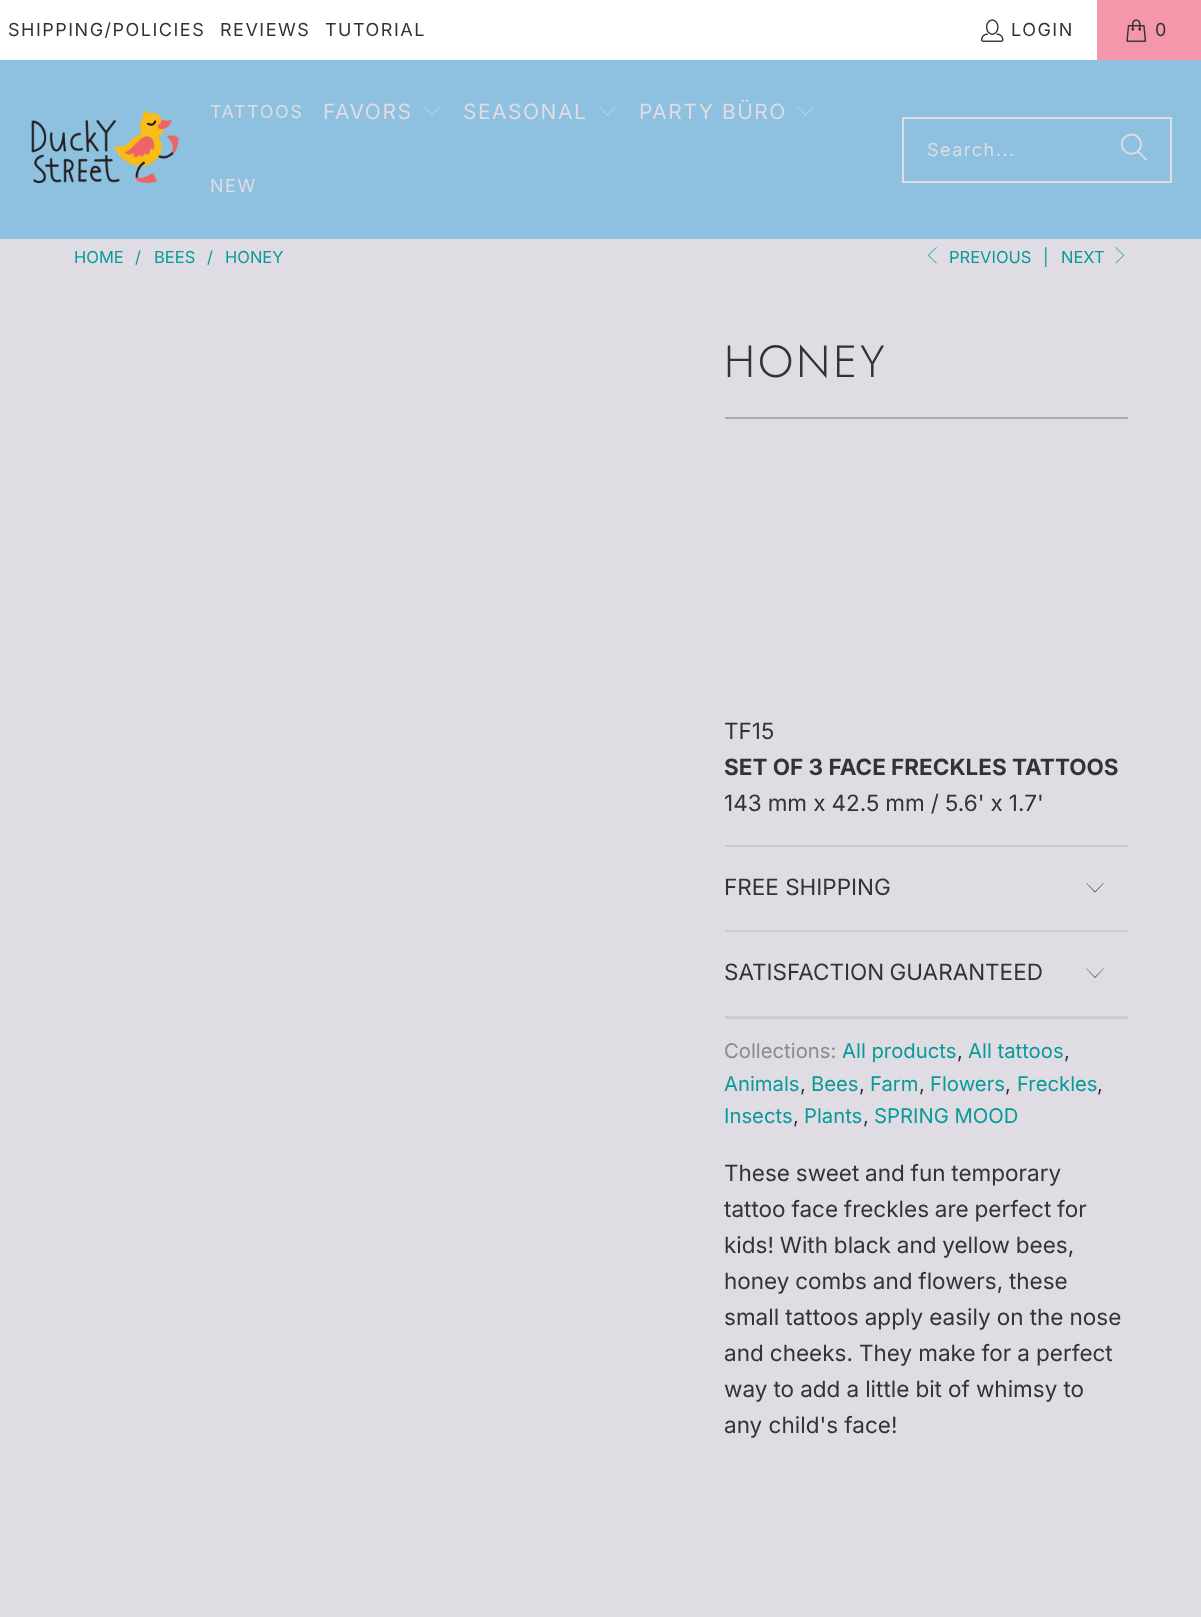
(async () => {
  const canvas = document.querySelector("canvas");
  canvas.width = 1201;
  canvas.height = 1617;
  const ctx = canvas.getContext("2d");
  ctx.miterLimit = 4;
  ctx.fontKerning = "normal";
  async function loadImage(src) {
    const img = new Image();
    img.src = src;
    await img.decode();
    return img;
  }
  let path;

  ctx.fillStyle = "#dfdce3";
  ctx.fillRect(0, 0, 1201, 1617);
  ctx.fillStyle = "#ffffff";
  ctx.fillRect(0, 0, 1097, 60);
  ctx.drawImage(await loadImage("img/1.png"), 981, 19, 23, 23);
  ctx.fillStyle = "#f596aa";
  ctx.fillRect(1097, 0, 104, 60);
  ctx.drawImage(await loadImage("img/2.png"), 1126, 19, 21, 23);
  ctx.fillStyle = "#8dc1df";
  ctx.fillRect(0, 60, 1201, 179);
  ctx.drawImage(await loadImage("img/3.png"), 31, 109, 148, 75);
  ctx.fillStyle = "#dfdce3";
  path = new Path2D("M432 115.5L423 106H423.5L432 114.5L440.5 106H441Z");
  ctx.fill(path);
  path = new Path2D("M607.5 115.5L598.5 106H599L607.5 114.5L616 106H616.5Z");
  ctx.fill(path);
  path = new Path2D("M805.5 115.5L796.5 106H797L805.5 114.5L814 106H814.5Z");
  ctx.fill(path);
  ctx.strokeStyle = "#dfdce3";
  ctx.lineWidth = 2;
  ctx.strokeRect(903, 118, 268, 64);
  ctx.drawImage(await loadImage("img/4.png"), 1120, 133, 27, 28);
  ctx.drawImage(await loadImage("img/5.png"), 927, 247, 10, 17);
  ctx.drawImage(await loadImage("img/6.png"), 1115, 247, 10, 17);
  for (const [x, y, w, h, color] of [
    [725, 417, 403, 2, "#aaaaaa"],
    [725, 845, 403, 2, "#cccccc"],
    [725, 930, 403, 2, "#cccccc"],
  ]) {
    ctx.fillStyle = color;
    ctx.fillRect(x, y, w, h);
  }
  ctx.fillStyle = "#333333";
  path = new Path2D("M1095 892.5L1086 883H1086.5L1095 891.5L1103.5 883H1104Z");
  ctx.fill(path);
  ctx.fillStyle = "#cccccc";
  ctx.fillRect(725, 1016, 403, 3);
  ctx.fillStyle = "#333333";
  path = new Path2D("M1095 978L1086 968.5H1086.5L1095 977L1103.5 968.5H1104Z");
  ctx.fill(path);
  ctx.letterSpacing = "1.5px";
  ctx.font = "18px Inter";
  for (const [text, x, y] of [
    ["SHIPPING/POLICIES", 8, 36],
    ["REVIEWS", 220, 36],
    ["TUTORIAL", 325, 36],
    ["LOGIN", 1011, 36],
    ["0", 1155, 36],
  ]) {
    ctx.fillText(text, x, y);
  }
  ctx.fillStyle = "#dfdce3";
  ctx.fillText("TATTOOS", 210, 118);
  ctx.font = "21px Inter";
  for (const [text, x, y] of [
    ["FAVORS", 323, 119],
    ["SEASONAL", 463, 119],
    ["PARTY BÜRO", 639, 119],
  ]) {
    ctx.fillText(text, x, y);
  }
  ctx.font = "18px Inter";
  ctx.fillText("NEW", 210, 192);
  ctx.fillText("Search...", 927, 156);
  ctx.letterSpacing = "0px";
  ctx.font = "16.5px Inter";
  ctx.fillStyle = "#089a99";
  for (const [text, x, y] of [
    ["HOME", 74, 263],
    ["/", 135, 263],
    ["BEES", 154, 263],
    ["/", 207, 263],
    ["HONEY", 225, 263],
    ["PREVIOUS", 949, 263],
    ["|", 1043, 263],
    ["NEXT", 1061, 263],
  ]) {
    ctx.fillText(text, x, y);
  }
  ctx.letterSpacing = "3px";
  ctx.font = "300 45px Jost";
  ctx.fillStyle = "#333333";
  ctx.fillText("HONEY", 724, 377);
  ctx.letterSpacing = "0px";
  ctx.font = "22.5px Inter";
  ctx.fillText("TF15", 724, 739);
  ctx.font = "bold 22.5px Inter";
  ctx.fillText("SET OF 3 FACE FRECKLES TATTOOS", 724, 775);
  ctx.wordSpacing = "-0.25px";
  ctx.font = "22.5px Inter";
  ctx.fillText("143 mm x 42.5 mm / 5.6' x 1.7'", 724, 811);
  ctx.wordSpacing = "0px";
  ctx.fillText("FREE SHIPPING", 724, 895);
  ctx.wordSpacing = "-1px";
  ctx.fillText("SATISFACTION GUARANTEED", 724, 980);
  ctx.wordSpacing = "0px";
  ctx.font = "20.25px Inter";
  ctx.fillStyle = "#8c8b8b";
  ctx.fillText("Collections:", 724, 1058);
  ctx.fillStyle = "#089a99";
  ctx.fillText("All products", 842, 1058);
  ctx.fillStyle = "#333333";
  ctx.fillText(",", 957, 1058);
  ctx.fillStyle = "#089a99";
  ctx.fillText("All tattoos", 968, 1058);
  ctx.fillStyle = "#333333";
  ctx.fillText(",", 1064, 1058);
  ctx.fillStyle = "#089a99";
  ctx.fillText("Animals", 724, 1091);
  ctx.fillStyle = "#333333";
  ctx.fillText(",", 800, 1091);
  ctx.fillStyle = "#089a99";
  ctx.fillText("Bees", 811, 1091);
  ctx.fillStyle = "#333333";
  ctx.fillText(",", 859, 1091);
  ctx.fillStyle = "#089a99";
  ctx.fillText("Farm", 870, 1091);
  ctx.fillStyle = "#333333";
  ctx.fillText(",", 919, 1091);
  ctx.fillStyle = "#089a99";
  ctx.fillText("Flowers", 930, 1091);
  ctx.fillStyle = "#333333";
  ctx.fillText(",", 1005, 1091);
  ctx.fillStyle = "#089a99";
  ctx.fillText("Freckles", 1017, 1091);
  ctx.fillStyle = "#333333";
  ctx.fillText(",", 1097, 1091);
  ctx.fillStyle = "#089a99";
  ctx.fillText("Insects", 724, 1123);
  ctx.fillStyle = "#333333";
  ctx.fillText(",", 793, 1123);
  ctx.fillStyle = "#089a99";
  ctx.fillText("Plants", 804, 1123);
  ctx.fillStyle = "#333333";
  ctx.fillText(",", 863, 1123);
  ctx.fillStyle = "#089a99";
  ctx.fillText("SPRING MOOD", 874, 1123);
  ctx.wordSpacing = "-0.5px";
  ctx.font = "22.5px Inter";
  ctx.fillStyle = "#333333";
  for (const [text, x, y] of [
    ["These sweet and fun temporary", 724, 1181],
    ["tattoo face freckles are perfect for", 724, 1217],
    ["kids! With black and yellow bees,", 724, 1253],
    ["honey combs and flowers, these", 724, 1289],
  ]) {
    ctx.fillText(text, x, y);
  }
  ctx.wordSpacing = "-0.25px";
  for (const [text, x, y] of [
    ["small tattoos apply easily on the nose", 724, 1325],
    ["and cheeks. They make for a perfect", 724, 1361],
    ["way to add a little bit of whimsy to", 724, 1397],
  ]) {
    ctx.fillText(text, x, y);
  }
  ctx.wordSpacing = "0px";
  ctx.fillText("any child's face!", 724, 1433);
})();
